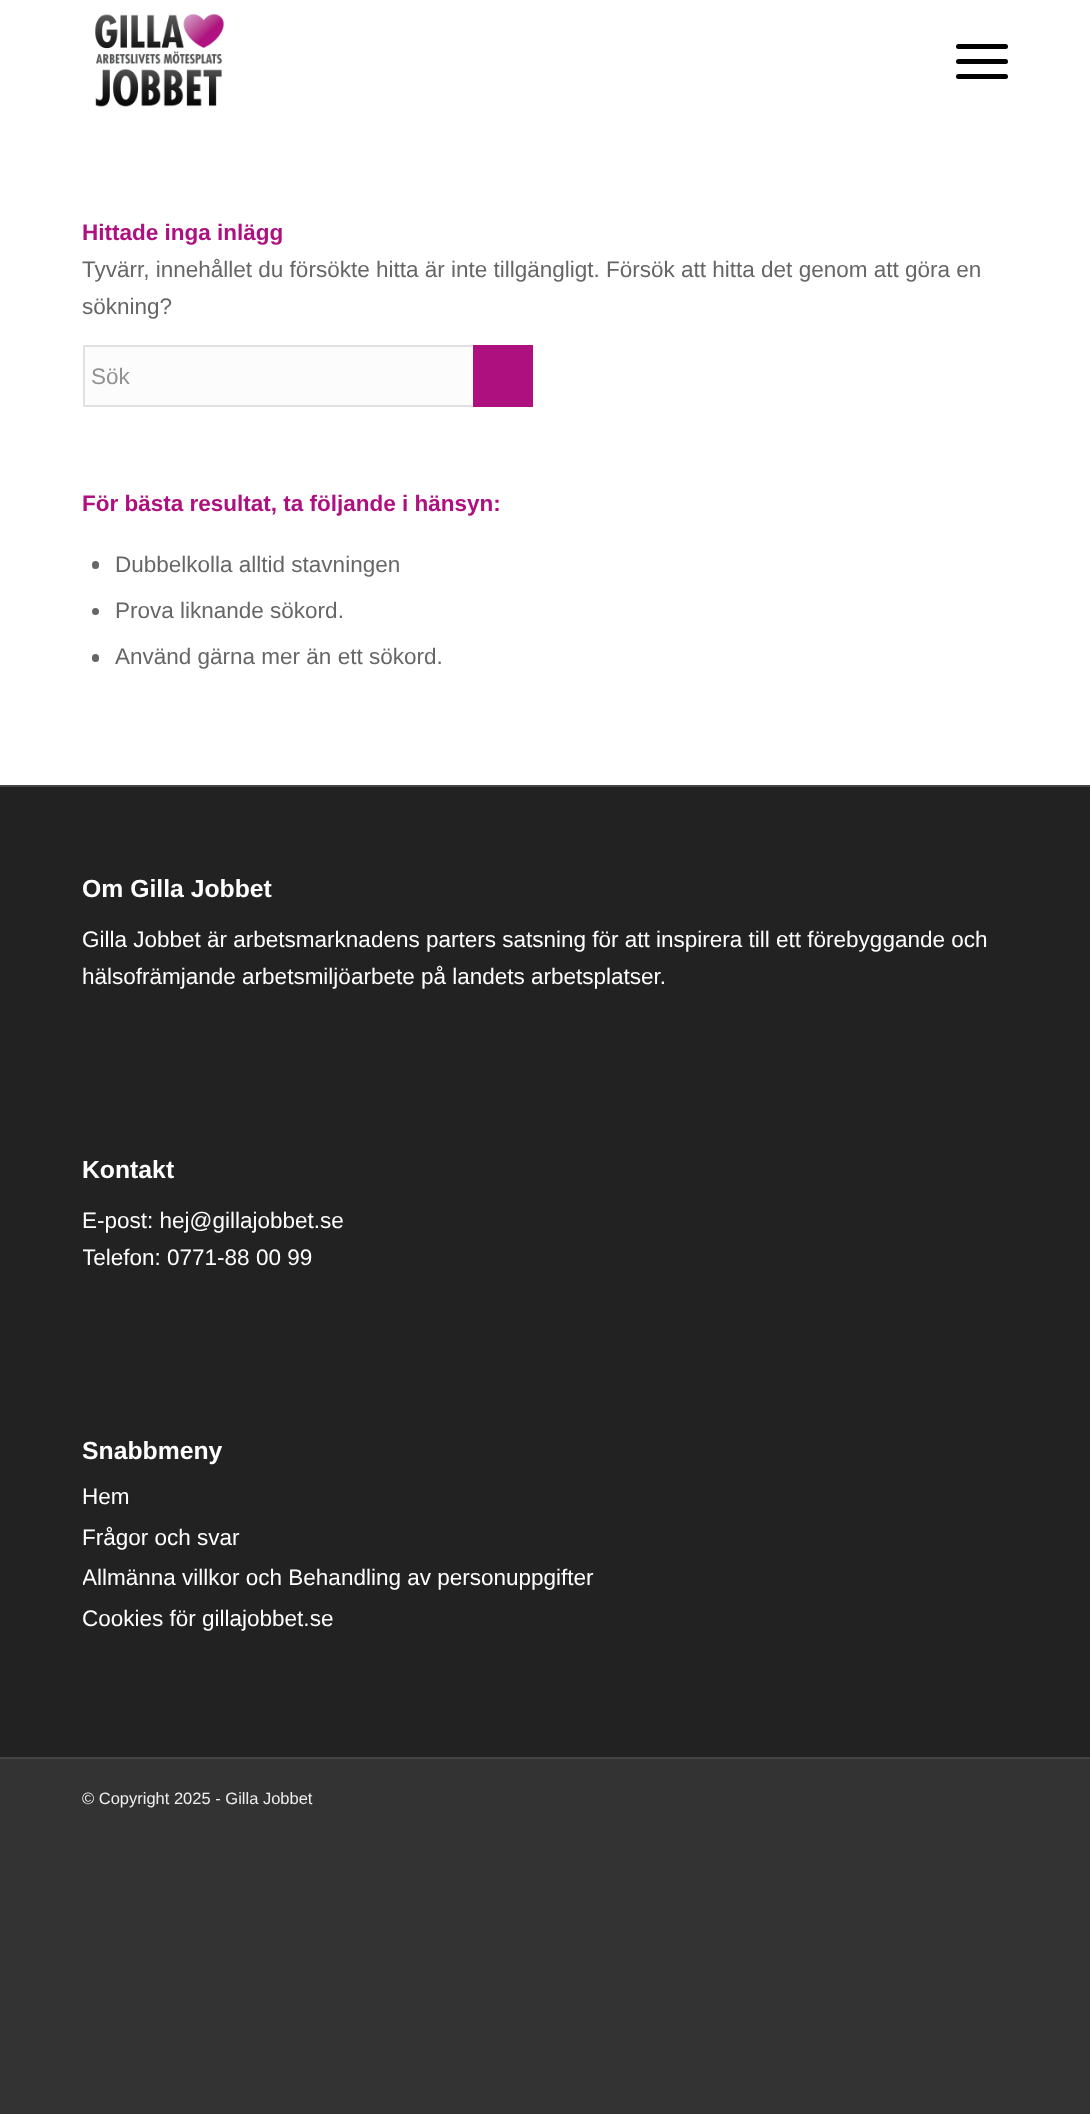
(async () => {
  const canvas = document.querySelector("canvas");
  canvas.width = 1090;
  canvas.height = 2114;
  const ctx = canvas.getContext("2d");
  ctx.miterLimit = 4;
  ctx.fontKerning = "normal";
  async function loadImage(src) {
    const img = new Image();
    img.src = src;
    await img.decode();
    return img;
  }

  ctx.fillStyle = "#333333";
  ctx.fillRect(0, 0, 1090, 2114);
  ctx.fillStyle = "#ffffff";
  ctx.fillRect(0, 0, 1090, 785);
  ctx.drawImage(await loadImage("img/1.png"), 95, 13, 129, 94);
  ctx.fillStyle = "#000000";
  ctx.beginPath();
  ctx.roundRect(956, 59, 52, 5, 2.5);
  ctx.fill();
  ctx.beginPath();
  ctx.roundRect(956, 44, 52, 5, 2.5);
  ctx.fill();
  ctx.beginPath();
  ctx.roundRect(956, 74, 52, 5, 2.5);
  ctx.fill();
  ctx.fillStyle = "#fcfcfc";
  ctx.fillRect(85, 347, 388, 58);
  ctx.strokeStyle = "#e1e1e1";
  ctx.lineWidth = 2;
  ctx.strokeRect(84, 346, 448, 60);
  ctx.fillStyle = "#ae117f";
  ctx.fillRect(473, 345, 60, 62);
  ctx.fillStyle = "#666666";
  ctx.beginPath();
  ctx.roundRect(92, 561, 7, 8, 3.5);
  ctx.fill();
  ctx.beginPath();
  ctx.arc(95.5, 611.5, 3.5, 0, Math.PI * 2);
  ctx.fill();
  ctx.beginPath();
  ctx.roundRect(92, 654, 7, 8, 3.5);
  ctx.fill();
  for (const [x, y, w, h, color] of [
    [0, 787, 1090, 970, "#222222"],
    [0, 785, 1090, 2, "#444444"],
    [0, 1757, 1090, 2, "#444444"],
  ]) {
    ctx.fillStyle = color;
    ctx.fillRect(x, y, w, h);
  }
  ctx.font = "bold 22.5px Liberation Sans";
  ctx.fillStyle = "#ae117f";
  ctx.fillText("Hittade inga inlägg", 82, 240);
  ctx.font = "22.5px Liberation Sans";
  ctx.fillStyle = "#666666";
  ctx.fillText("Tyvärr, innehållet du försökte hitta är inte tillgängligt. Försök att hitta det genom att göra en", 82, 277);
  ctx.fillText("sökning?", 82, 314);
  ctx.fillStyle = "#919191";
  ctx.fillText("Sök", 91, 384);
  ctx.font = "bold 22.5px Liberation Sans";
  ctx.fillStyle = "#ae117f";
  ctx.fillText("För bästa resultat, ta följande i hänsyn:", 82, 511);
  ctx.font = "22.5px Liberation Sans";
  ctx.fillStyle = "#666666";
  for (const [text, x, y] of [
    ["Dubbelkolla alltid stavningen", 115, 572],
    ["Prova liknande sökord.", 115, 618],
    ["Använd gärna mer än ett sökord.", 115, 664],
  ]) {
    ctx.fillText(text, x, y);
  }
  ctx.save();
  ctx.beginPath();
  ctx.rect(83, 854, 925, 160);
  ctx.clip();
  ctx.font = "bold 24.75px Liberation Sans";
  ctx.fillStyle = "#ffffff";
  ctx.fillText("Om Gilla Jobbet", 82, 897);
  ctx.restore();
  ctx.fillStyle = "#ffffff";
  ctx.fillText("Gilla Jobbet är arbetsmarknadens parters satsning för att inspirera till ett förebyggande och", 82, 947);
  ctx.fillText("hälsofrämjande arbetsmiljöarbete på landets arbetsplatser.", 82, 984);
  ctx.font = "bold 24.75px Liberation Sans";
  ctx.fillText("Kontakt", 82, 1178);
  ctx.font = "22.5px Liberation Sans";
  ctx.fillText("E-post: hej@gillajobbet.se", 82, 1228);
  ctx.save();
  ctx.beginPath();
  ctx.rect(83, 1134, 925, 162);
  ctx.clip();
  ctx.fillText("Telefon: 0771-88 00 99", 82, 1265);
  ctx.restore();
  ctx.font = "bold 24.75px Liberation Sans";
  ctx.fillText("Snabbmeny", 82, 1459);
  ctx.font = "22.5px Liberation Sans";
  ctx.fillText("Hem", 82, 1504);
  ctx.fillText("Frågor och svar", 82, 1545);
  ctx.save();
  ctx.beginPath();
  ctx.rect(83, 1476, 925, 162);
  ctx.clip();
  ctx.fillText("Allmänna villkor och Behandling av personuppgifter", 82, 1585);
  ctx.restore();
  ctx.fillText("Cookies för gillajobbet.se", 82, 1626);
  ctx.font = "16.5px Liberation Sans";
  ctx.fillStyle = "#eeeeee";
  ctx.fillText("© Copyright 2025 - Gilla Jobbet", 82, 1804);
})();
